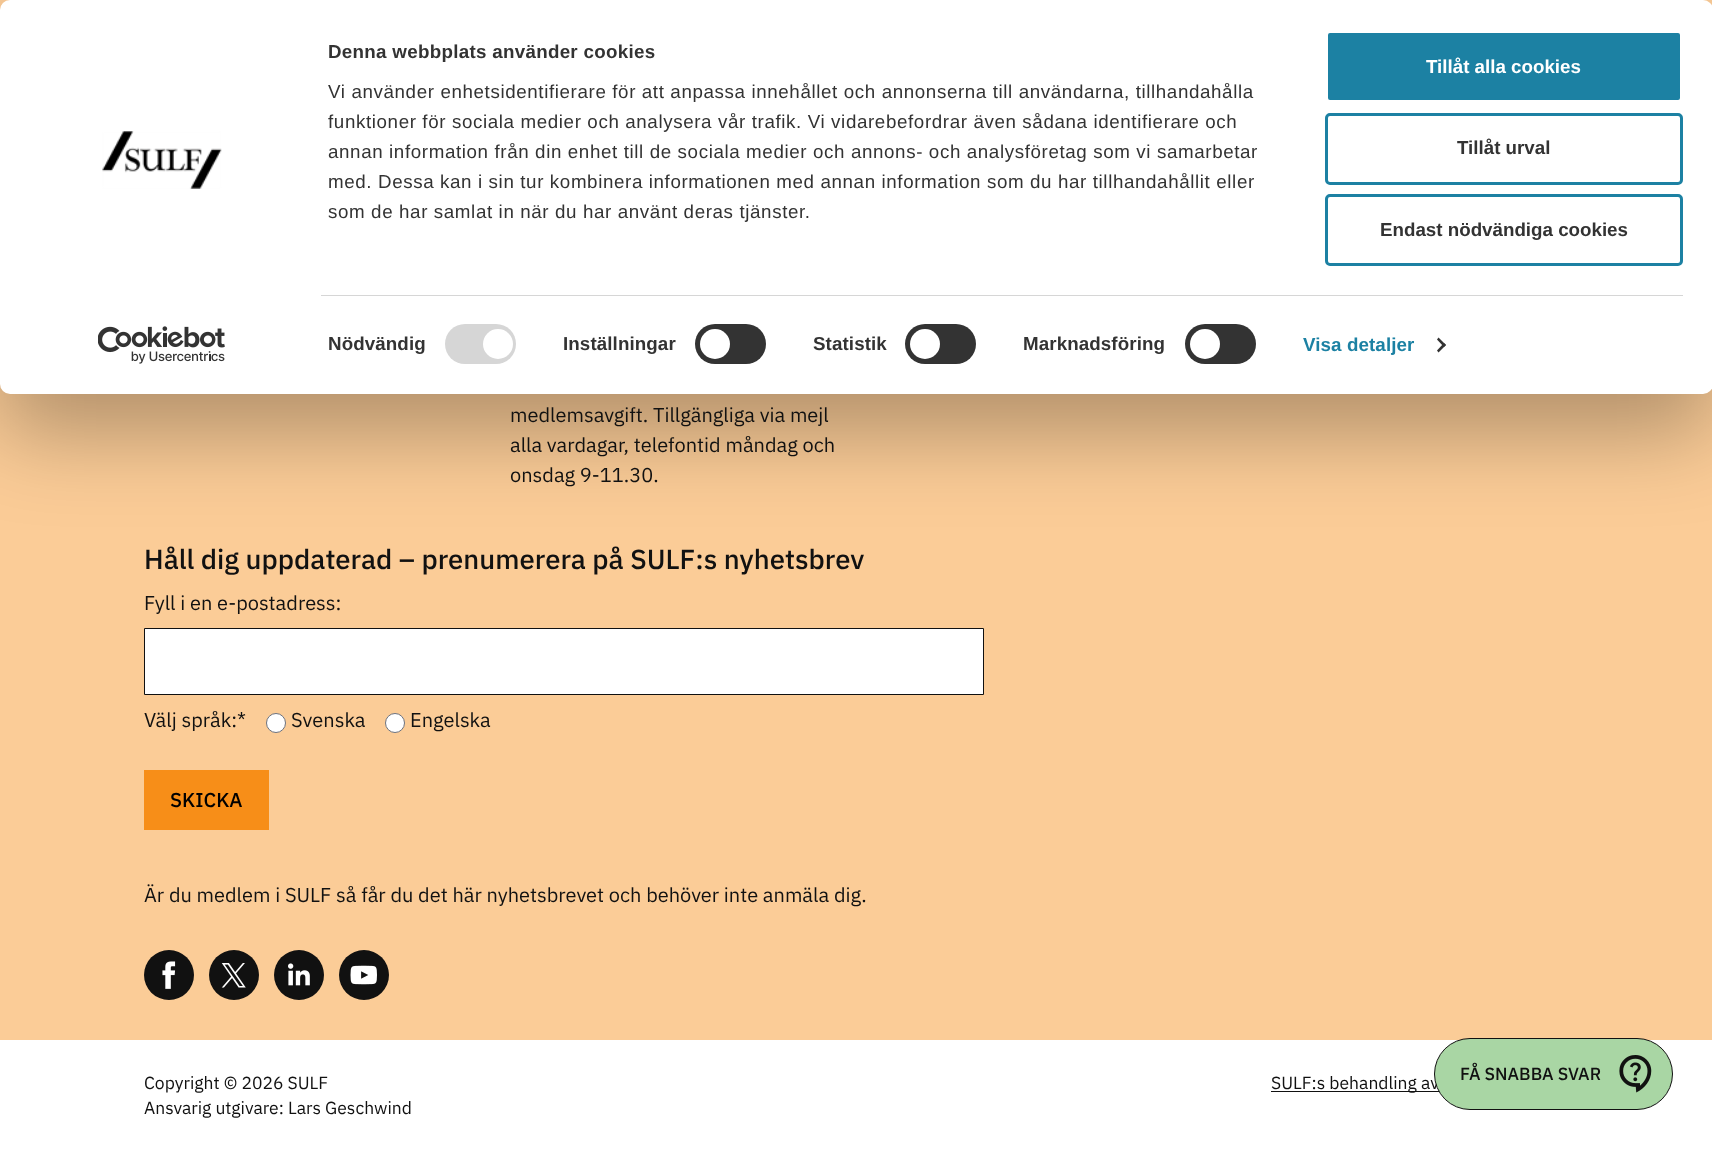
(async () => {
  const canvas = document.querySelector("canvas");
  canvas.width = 1712;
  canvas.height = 1150;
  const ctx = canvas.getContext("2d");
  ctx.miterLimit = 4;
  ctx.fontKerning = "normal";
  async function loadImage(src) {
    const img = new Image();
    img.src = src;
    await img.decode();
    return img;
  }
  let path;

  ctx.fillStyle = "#ffffff";
  ctx.fillRect(0, 0, 1712, 1150);
  ctx.fillStyle = "#fbcc97";
  ctx.fillRect(0, 0, 1712, 1040);
  ctx.fillStyle = "rgba(0, 0, 0, 0.3)";
  ctx.filter = "blur(44px)";
  ctx.beginPath();
  ctx.roundRect(0, 38, 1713, 393, 10);
  ctx.fill();
  ctx.filter = "none";
  ctx.fillStyle = "#ffffff";
  ctx.beginPath();
  ctx.roundRect(0, 0, 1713, 394, 10);
  ctx.fill();
  ctx.drawImage(await loadImage("img/1.png"), 102, 131, 120, 58);
  ctx.drawImage(await loadImage("img/2.png"), 98, 326, 127, 38);
  ctx.fillStyle = "#d6d6d6";
  ctx.fillRect(321, 295, 1362, 1);
  ctx.beginPath();
  ctx.roundRect(445, 324, 71, 40, 20);
  ctx.fill();
  ctx.fillStyle = "#ffffff";
  ctx.beginPath();
  ctx.arc(498, 344, 15, 0, Math.PI * 2);
  ctx.fill();
  ctx.fillStyle = "#333333";
  ctx.beginPath();
  ctx.roundRect(695, 324, 71, 40, 20);
  ctx.fill();
  ctx.fillStyle = "#ffffff";
  ctx.beginPath();
  ctx.arc(715, 344, 15, 0, Math.PI * 2);
  ctx.fill();
  ctx.fillStyle = "#333333";
  ctx.beginPath();
  ctx.roundRect(905, 324, 71, 40, 20);
  ctx.fill();
  ctx.fillStyle = "#ffffff";
  ctx.beginPath();
  ctx.arc(925, 344, 15, 0, Math.PI * 2);
  ctx.fill();
  ctx.fillStyle = "#333333";
  ctx.beginPath();
  ctx.roundRect(1185, 324, 71, 40, 20);
  ctx.fill();
  ctx.fillStyle = "#ffffff";
  ctx.beginPath();
  ctx.arc(1205, 344, 15, 0, Math.PI * 2);
  ctx.fill();
  ctx.fillStyle = "#333333";
  path = new Path2D("M1438.5 337.5L1446 345L1444 347L1437 339.5Z");
  ctx.fill(path);
  path = new Path2D("M1444 343L1446 345L1438.5 352.5L1437 350.5Z");
  ctx.fill(path);
  ctx.fillStyle = "#1c81a3";
  ctx.beginPath();
  ctx.roundRect(1326.5, 31.5, 355, 70, 3.5);
  ctx.fill();
  ctx.strokeStyle = "#ffffff";
  ctx.lineWidth = 3;
  ctx.stroke();
  ctx.beginPath();
  ctx.roundRect(1326.5, 114.5, 355, 69, 3.5);
  ctx.strokeStyle = "#1c81a3";
  ctx.stroke();
  ctx.beginPath();
  ctx.roundRect(1326.5, 195.5, 355, 69, 3.5);
  ctx.stroke();
  ctx.fillStyle = "#ffffff";
  ctx.beginPath();
  ctx.rect(144.5, 628.5, 839, 66);
  ctx.fill();
  ctx.strokeStyle = "#111111";
  ctx.lineWidth = 1;
  ctx.stroke();
  ctx.beginPath();
  ctx.arc(276, 723, 9.5, 0, Math.PI * 2);
  ctx.fill();
  ctx.strokeStyle = "#6b7280";
  ctx.stroke();
  ctx.beginPath();
  ctx.arc(395, 723, 9.5, 0, Math.PI * 2);
  ctx.fill();
  ctx.stroke();
  ctx.fillStyle = "#f78e18";
  ctx.fillRect(144, 770, 125, 60);
  ctx.fillStyle = "#111111";
  ctx.beginPath();
  ctx.arc(169, 975, 25, 0, Math.PI * 2);
  ctx.fill();
  ctx.drawImage(await loadImage("img/3.png"), 162, 961, 14, 28);
  ctx.beginPath();
  ctx.arc(234, 975, 25, 0, Math.PI * 2);
  ctx.fill();
  ctx.drawImage(await loadImage("img/4.png"), 221, 963, 25, 25);
  ctx.beginPath();
  ctx.arc(299, 975, 25, 0, Math.PI * 2);
  ctx.fill();
  ctx.drawImage(await loadImage("img/5.png"), 288, 963, 22, 23);
  ctx.beginPath();
  ctx.arc(364, 975, 25, 0, Math.PI * 2);
  ctx.fill();
  ctx.drawImage(await loadImage("img/6.png"), 350, 965, 27, 20);
  ctx.fillRect(1271, 1091, 168, 1);
  ctx.letterSpacing = "0.3px";
  ctx.font = "bold 18.75px Liberation Sans";
  ctx.fillStyle = "#333333";
  ctx.fillText("Denna webbplats använder cookies", 328, 58);
  ctx.letterSpacing = "0.62px";
  ctx.font = "18.75px Liberation Sans";
  for (const [text, x, y] of [
    ["Vi använder enhetsidentifierare för att anpassa innehållet och annonserna till användarna, tillhandahålla", 328, 98],
    ["funktioner för sociala medier och analysera vår trafik. Vi vidarebefordrar även sådana identifierare och", 328, 128],
    ["annan information från din enhet till de sociala medier och annons- och analysföretag som vi samarbetar", 328, 158],
    ["med. Dessa kan i sin tur kombinera informationen med annan information som du har tillhandahållit eller", 328, 188],
    ["som de har samlat in när du har använt deras tjänster.", 328, 218],
  ]) {
    ctx.fillText(text, x, y);
  }
  ctx.letterSpacing = "0.1px";
  ctx.font = "bold 18.75px Liberation Sans";
  for (const [text, x, y] of [
    ["Nödvändig", 328, 350],
    ["Inställningar", 563, 350],
    ["Statistik", 813, 350],
    ["Marknadsföring", 1023, 350],
  ]) {
    ctx.fillText(text, x, y);
  }
  ctx.fillStyle = "#1c81a3";
  ctx.fillText("Visa detaljer", 1303, 351);
  ctx.letterSpacing = "0px";
  ctx.fillStyle = "#ffffff";
  ctx.fillText("Tillåt alla cookies", 1426, 73);
  ctx.fillStyle = "#333333";
  ctx.fillText("Tillåt urval", 1457, 154);
  ctx.fillText("Endast nödvändiga cookies", 1380, 236);
  ctx.font = "20px IBM Plex Sans";
  ctx.fillStyle = "#111111";
  for (const [text, x, y] of [
    ["medlemsavgift. Tillgängliga via mejl", 510, 422],
    ["alla vardagar, telefontid måndag och", 510, 452],
    ["onsdag 9-11.30.", 510, 482],
  ]) {
    ctx.fillText(text, x, y);
  }
  ctx.font = "500 27.5px IBM Plex Sans";
  ctx.fillText("Håll dig uppdaterad – prenumerera på SULF:s nyhetsbrev", 144, 569);
  ctx.font = "20px IBM Plex Sans";
  for (const [text, x, y] of [
    ["Fyll i en e-postadress:", 144, 610],
    ["Välj språk:*", 144, 727],
    ["Svenska", 291, 727],
    ["Engelska", 410, 727],
  ]) {
    ctx.fillText(text, x, y);
  }
  ctx.font = "500 20px IBM Plex Sans";
  ctx.fillStyle = "#000000";
  ctx.fillText("SKICKA", 170, 807);
  ctx.font = "20px IBM Plex Sans";
  ctx.fillStyle = "#111111";
  ctx.fillText("Är du medlem i SULF så får du det här nyhetsbrevet och behöver inte anmäla dig.", 144, 902);
  ctx.font = "17.5px IBM Plex Sans";
  for (const [text, x, y] of [
    ["Copyright © 2026 SULF", 144, 1089],
    ["Ansvarig utgivare: Lars Geschwind", 144, 1114],
    ["SULF:s behandling av", 1271, 1089],
  ]) {
    ctx.fillText(text, x, y);
  }
  ctx.fillStyle = "#a9d6a4";
  ctx.beginPath();
  ctx.roundRect(1434.5, 1038.5, 238, 71, 35.5);
  ctx.fill();
  ctx.strokeStyle = "#111111";
  ctx.stroke();
  ctx.font = "500 17.5px IBM Plex Sans";
  ctx.fillStyle = "#111111";
  ctx.fillText("FÅ SNABBA SVAR", 1460, 1080);
  ctx.drawImage(await loadImage("img/7.png"), 1619, 1055, 33, 38);
})();
